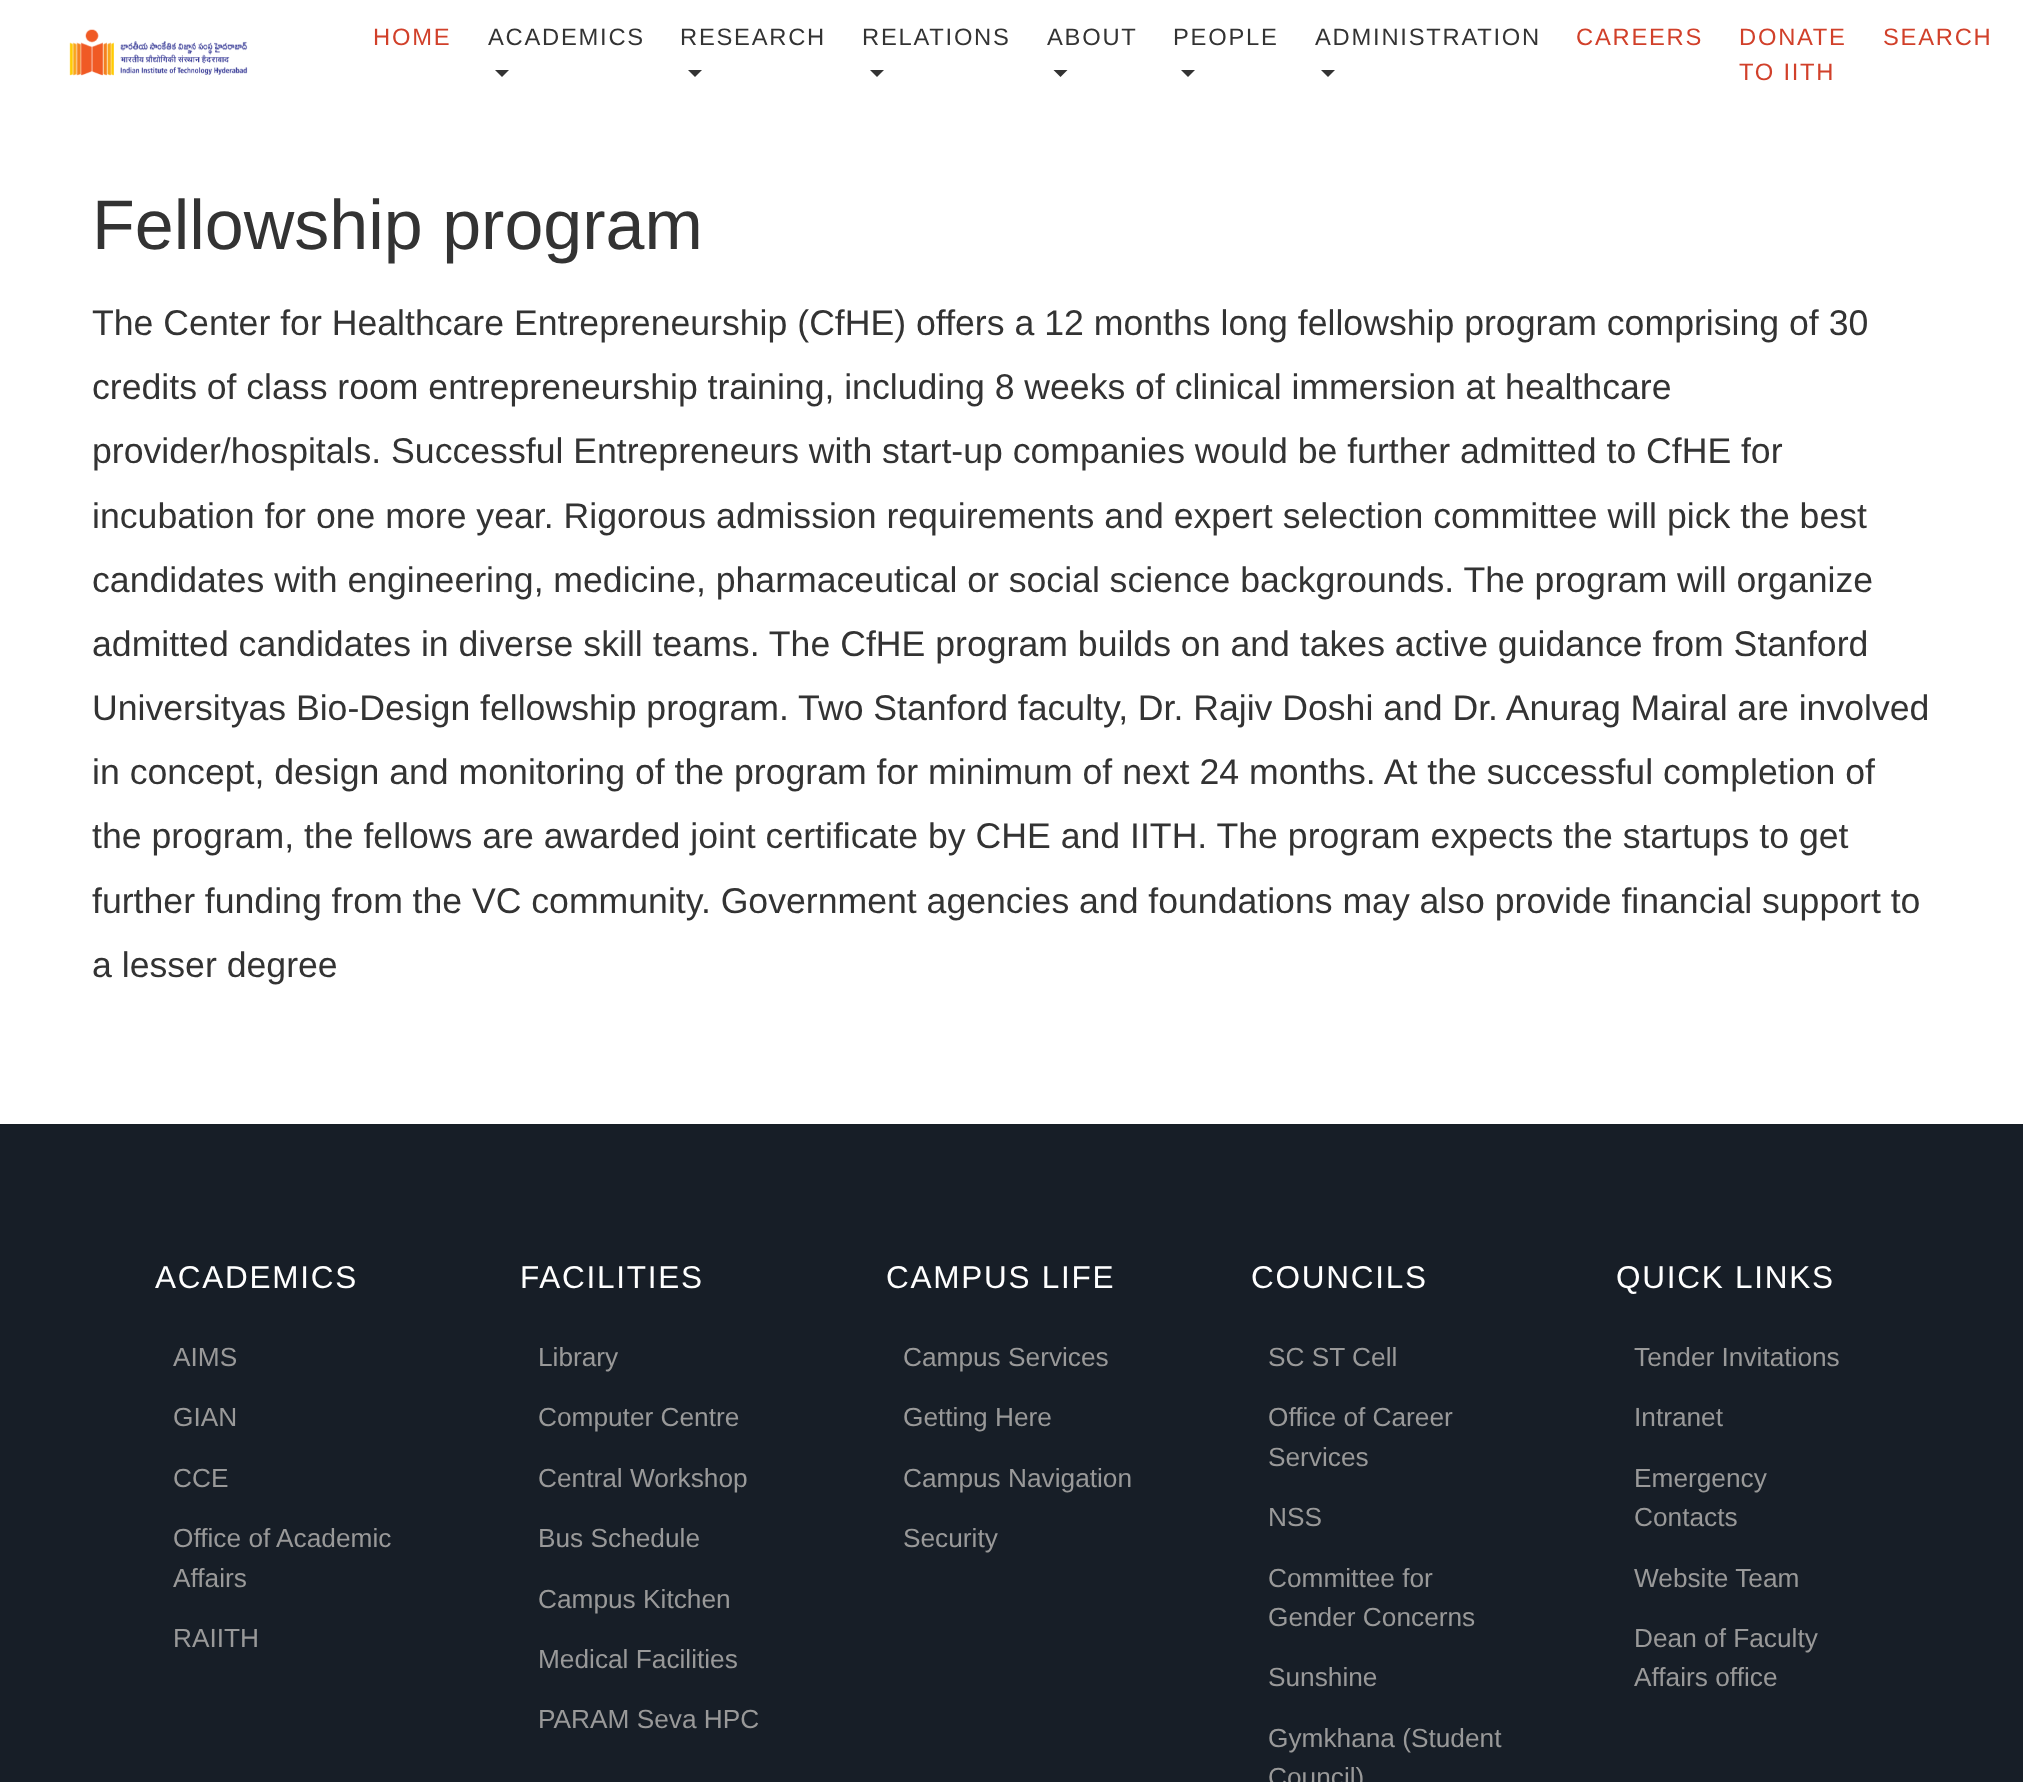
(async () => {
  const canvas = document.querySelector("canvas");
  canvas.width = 2023;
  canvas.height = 1782;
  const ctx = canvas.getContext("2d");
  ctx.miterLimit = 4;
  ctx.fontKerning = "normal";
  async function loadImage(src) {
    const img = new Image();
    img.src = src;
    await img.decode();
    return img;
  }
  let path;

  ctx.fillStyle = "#ffffff";
  ctx.fillRect(0, 0, 2023, 1782);
  ctx.drawImage(await loadImage("img/1.png"), 69, 29, 179, 47);
  ctx.fillStyle = "#333333";
  path = new Path2D("M495 70H509L502 77Z");
  ctx.fill(path);
  path = new Path2D("M688 70H702L695 77Z");
  ctx.fill(path);
  path = new Path2D("M870 70H884L877 77Z");
  ctx.fill(path);
  path = new Path2D("M1053.5 70H1067.5L1060.5 77Z");
  ctx.fill(path);
  path = new Path2D("M1181 70H1195L1188 77Z");
  ctx.fill(path);
  path = new Path2D("M1321 70H1335L1328 77Z");
  ctx.fill(path);
  ctx.fillStyle = "#171e27";
  ctx.fillRect(0, 1126, 2023, 656);
  ctx.fillStyle = "#161d25";
  ctx.fillRect(0, 1124, 2023, 2);
  ctx.letterSpacing = "1.75px";
  ctx.font = "23.75px Liberation Sans";
  ctx.fillStyle = "#d1402a";
  ctx.fillText("HOME", 373, 45);
  ctx.fillStyle = "#333333";
  for (const [text, x, y] of [
    ["ACADEMICS", 488, 45],
    ["RESEARCH", 680, 45],
    ["RELATIONS", 862, 45],
    ["ABOUT", 1047, 45],
    ["PEOPLE", 1173, 45],
    ["ADMINISTRATION", 1315, 45],
  ]) {
    ctx.fillText(text, x, y);
  }
  ctx.fillStyle = "#d1402a";
  for (const [text, x, y] of [
    ["CAREERS", 1576, 45],
    ["DONATE", 1739, 45],
    ["TO IITH", 1739, 80],
    ["SEARCH", 1883, 45],
  ]) {
    ctx.fillText(text, x, y);
  }
  ctx.letterSpacing = "0px";
  ctx.font = "70px Liberation Sans";
  ctx.fillStyle = "#333333";
  ctx.fillText("Fellowship program", 92, 249);
  ctx.font = "35.65px Liberation Sans";
  ctx.fillText("The Center for Healthcare Entrepreneurship (CfHE) offers a 12 months long fellowship program comprising of 30", 92, 335);
  ctx.wordSpacing = "-0.1px";
  ctx.fillText("credits of class room entrepreneurship training, including 8 weeks of clinical immersion at healthcare", 92, 399);
  ctx.fillText("provider/hospitals. Successful Entrepreneurs with start-up companies would be further admitted to CfHE for", 92, 463);
  ctx.wordSpacing = "0px";
  ctx.fillText("incubation for one more year. Rigorous admission requirements and expert selection committee will pick the best", 92, 528);
  ctx.wordSpacing = "-0.1px";
  ctx.fillText("candidates with engineering, medicine, pharmaceutical or social science backgrounds. The program will organize", 92, 592);
  ctx.wordSpacing = "0px";
  ctx.fillText("admitted candidates in diverse skill teams. The CfHE program builds on and takes active guidance from Stanford", 92, 656);
  ctx.wordSpacing = "-0.1px";
  ctx.fillText("Universityas Bio-Design fellowship program. Two Stanford faculty, Dr. Rajiv Doshi and Dr. Anurag Mairal are involved", 92, 720);
  ctx.wordSpacing = "0px";
  ctx.fillText("in concept, design and monitoring of the program for minimum of next 24 months. At the successful completion of", 92, 784);
  ctx.fillText("the program, the fellows are awarded joint certificate by CHE and IITH. The program expects the startups to get", 92, 848);
  ctx.wordSpacing = "-0.1px";
  ctx.fillText("further funding from the VC community. Government agencies and foundations may also provide financial support to", 92, 913);
  ctx.wordSpacing = "0px";
  ctx.fillText("a lesser degree", 92, 977);
  ctx.letterSpacing = "1.75px";
  ctx.font = "31.5px Liberation Sans";
  ctx.fillStyle = "#ffffff";
  ctx.fillText("ACADEMICS", 155, 1288);
  ctx.letterSpacing = "0px";
  ctx.font = "26.25px Liberation Sans";
  ctx.fillStyle = "#999999";
  for (const [text, x, y] of [
    ["AIMS", 173, 1366],
    ["GIAN", 173, 1426],
    ["CCE", 173, 1487],
    ["Office of Academic", 173, 1547],
    ["Affairs", 173, 1587],
    ["RAIITH", 173, 1647],
  ]) {
    ctx.fillText(text, x, y);
  }
  ctx.letterSpacing = "1.75px";
  ctx.font = "31.5px Liberation Sans";
  ctx.fillStyle = "#ffffff";
  ctx.fillText("FACILITIES", 520, 1288);
  ctx.letterSpacing = "0px";
  ctx.font = "26.25px Liberation Sans";
  ctx.fillStyle = "#999999";
  for (const [text, x, y] of [
    ["Library", 538, 1366],
    ["Computer Centre", 538, 1426],
    ["Central Workshop", 538, 1487],
    ["Bus Schedule", 538, 1547],
    ["Campus Kitchen", 538, 1608],
    ["Medical Facilities", 538, 1668],
    ["PARAM Seva HPC", 538, 1728],
  ]) {
    ctx.fillText(text, x, y);
  }
  ctx.letterSpacing = "1.75px";
  ctx.font = "31.5px Liberation Sans";
  ctx.fillStyle = "#ffffff";
  ctx.fillText("CAMPUS LIFE", 886, 1288);
  ctx.letterSpacing = "0px";
  ctx.font = "26.25px Liberation Sans";
  ctx.fillStyle = "#999999";
  for (const [text, x, y] of [
    ["Campus Services", 903, 1366],
    ["Getting Here", 903, 1426],
    ["Campus Navigation", 903, 1487],
    ["Security", 903, 1547],
  ]) {
    ctx.fillText(text, x, y);
  }
  ctx.letterSpacing = "1.75px";
  ctx.font = "31.5px Liberation Sans";
  ctx.fillStyle = "#ffffff";
  ctx.fillText("COUNCILS", 1251, 1288);
  ctx.letterSpacing = "0px";
  ctx.font = "26.25px Liberation Sans";
  ctx.fillStyle = "#999999";
  for (const [text, x, y] of [
    ["SC ST Cell", 1268, 1366],
    ["Office of Career", 1268, 1426],
    ["Services", 1268, 1466],
    ["NSS", 1268, 1526],
    ["Committee for", 1268, 1587],
    ["Gender Concerns", 1268, 1626],
    ["Sunshine", 1268, 1686],
    ["Gymkhana (Student", 1268, 1747],
    ["Council)", 1268, 1786],
  ]) {
    ctx.fillText(text, x, y);
  }
  ctx.letterSpacing = "1.75px";
  ctx.font = "31.5px Liberation Sans";
  ctx.fillStyle = "#ffffff";
  ctx.fillText("QUICK LINKS", 1616, 1288);
  ctx.letterSpacing = "0px";
  ctx.font = "26.25px Liberation Sans";
  ctx.fillStyle = "#999999";
  for (const [text, x, y] of [
    ["Tender Invitations", 1634, 1366],
    ["Intranet", 1634, 1426],
    ["Emergency", 1634, 1487],
    ["Contacts", 1634, 1526],
    ["Website Team", 1634, 1587],
    ["Dean of Faculty", 1634, 1647],
    ["Affairs office", 1634, 1686],
  ]) {
    ctx.fillText(text, x, y);
  }
})();
